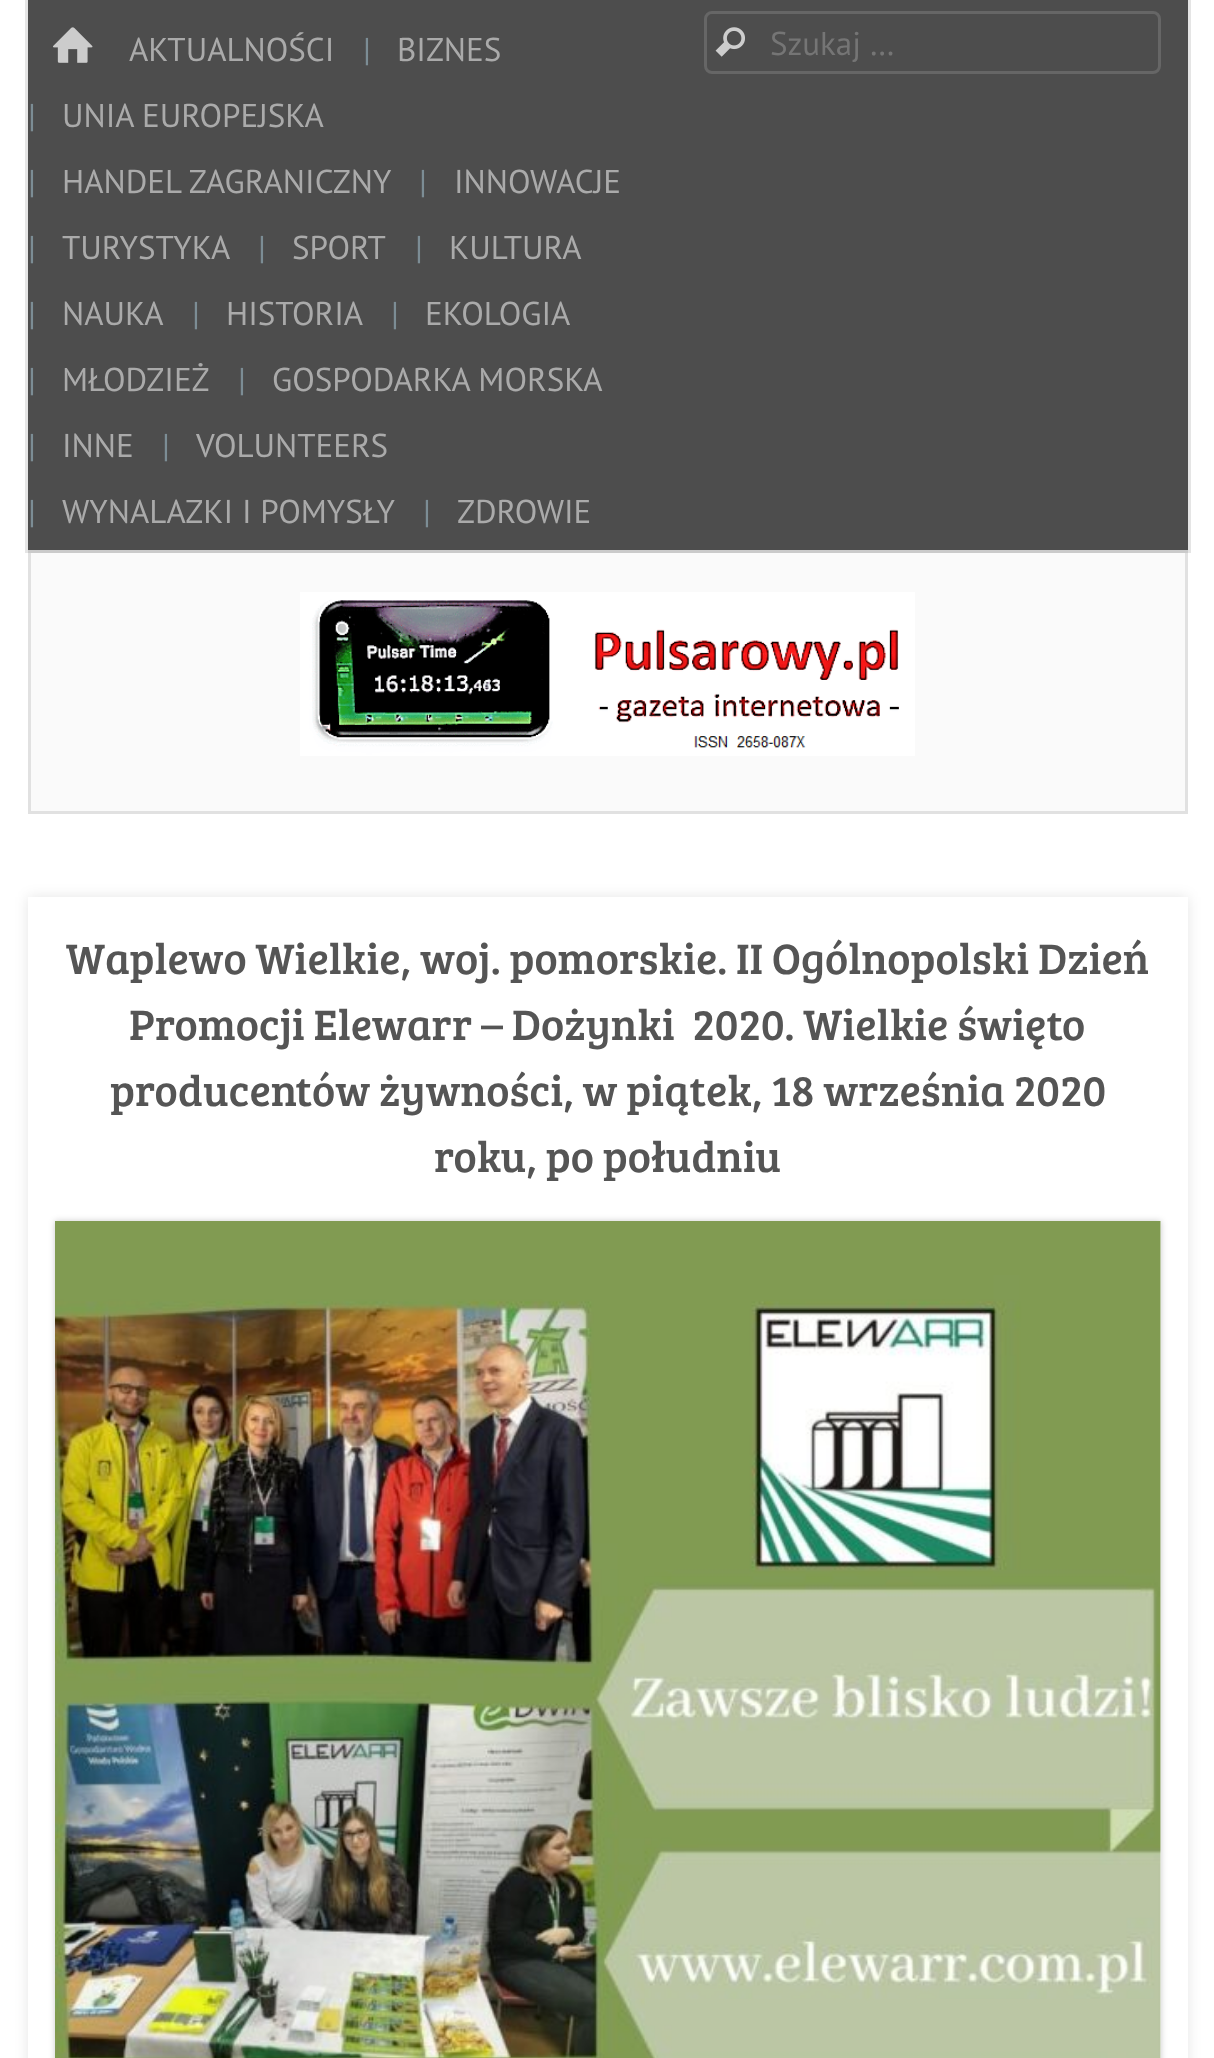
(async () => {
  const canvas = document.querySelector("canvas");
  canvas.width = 1214;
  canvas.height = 2058;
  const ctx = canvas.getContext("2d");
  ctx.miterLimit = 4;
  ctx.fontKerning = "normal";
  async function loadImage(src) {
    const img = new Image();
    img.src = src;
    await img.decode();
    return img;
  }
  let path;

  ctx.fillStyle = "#ffffff";
  ctx.fillRect(0, 0, 1214, 2058);
  ctx.fillStyle = "#fafafa";
  ctx.beginPath();
  ctx.rect(29.5, 551.5, 1157, 261);
  ctx.fill();
  ctx.strokeStyle = "#e1e1e1";
  ctx.lineWidth = 3;
  ctx.stroke();
  ctx.strokeStyle = "rgba(0, 0, 0, 0.1)";
  ctx.strokeRect(26.5, -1.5, 1163, 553);
  ctx.fillStyle = "#4d4d4d";
  ctx.fillRect(28, 0, 1160, 550);
  ctx.drawImage(await loadImage("img/1.png"), 53, 27, 40, 36);
  ctx.beginPath();
  ctx.roundRect(705.5, 12.5, 454, 60, 6.5);
  ctx.strokeStyle = "#666666";
  ctx.stroke();
  ctx.drawImage(await loadImage("img/2.png"), 715, 27, 30, 30);
  ctx.drawImage(await loadImage("img/3.png"), 300, 592, 615, 164);
  ctx.save();
  path = new Path2D("M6 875H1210V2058H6ZM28 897H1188V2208H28Z");
  ctx.clip(path, "evenodd");
  ctx.fillStyle = "rgba(0, 0, 0, 0.1)";
  ctx.filter = "blur(7px)";
  ctx.beginPath();
  ctx.rect(28, 897, 1160, 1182);
  ctx.fill();
  ctx.filter = "none";
  ctx.restore();
  ctx.fillStyle = "rgba(0, 0, 0, 0.2)";
  ctx.filter = "blur(3px)";
  ctx.beginPath();
  ctx.rect(55, 1221, 1106, 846);
  ctx.fill();
  ctx.filter = "none";
  ctx.fillStyle = "#f8f8f8";
  ctx.fillRect(1160, 1221, 1, 837);
  ctx.drawImage(await loadImage("img/4.png"), 55, 1221, 1106, 837);
  ctx.font = "33px PT Sans";
  ctx.fillStyle = "#aaaaaa";
  ctx.fillText("AKTUALNOŚCI", 129, 61);
  ctx.fillStyle = "#7c8d95";
  ctx.fillText("|", 363, 61);
  ctx.fillStyle = "#aaaaaa";
  ctx.fillText("BIZNES", 397, 61);
  ctx.fillStyle = "#7c8d95";
  ctx.fillText("|", 28, 127);
  ctx.fillStyle = "#aaaaaa";
  ctx.fillText("UNIA EUROPEJSKA", 62, 127);
  ctx.fillStyle = "#7c8d95";
  ctx.fillText("|", 28, 193);
  ctx.fillStyle = "#aaaaaa";
  ctx.fillText("HANDEL ZAGRANICZNY", 62, 193);
  ctx.fillStyle = "#7c8d95";
  ctx.fillText("|", 419, 193);
  ctx.fillStyle = "#aaaaaa";
  ctx.fillText("INNOWACJE", 454, 193);
  ctx.fillStyle = "#7c8d95";
  ctx.fillText("|", 28, 259);
  ctx.fillStyle = "#aaaaaa";
  ctx.fillText("TURYSTYKA", 62, 259);
  ctx.fillStyle = "#7c8d95";
  ctx.fillText("|", 258, 259);
  ctx.fillStyle = "#aaaaaa";
  ctx.fillText("SPORT", 292, 259);
  ctx.fillStyle = "#7c8d95";
  ctx.fillText("|", 415, 259);
  ctx.fillStyle = "#aaaaaa";
  ctx.fillText("KULTURA", 449, 259);
  ctx.fillStyle = "#7c8d95";
  ctx.fillText("|", 28, 325);
  ctx.fillStyle = "#aaaaaa";
  ctx.fillText("NAUKA", 62, 325);
  ctx.fillStyle = "#7c8d95";
  ctx.fillText("|", 192, 325);
  ctx.fillStyle = "#aaaaaa";
  ctx.fillText("HISTORIA", 226, 325);
  ctx.fillStyle = "#7c8d95";
  ctx.fillText("|", 391, 325);
  ctx.fillStyle = "#aaaaaa";
  ctx.fillText("EKOLOGIA", 425, 325);
  ctx.fillStyle = "#7c8d95";
  ctx.fillText("|", 28, 391);
  ctx.fillStyle = "#aaaaaa";
  ctx.fillText("MŁODZIEŻ", 62, 391);
  ctx.fillStyle = "#7c8d95";
  ctx.fillText("|", 238, 391);
  ctx.fillStyle = "#aaaaaa";
  ctx.fillText("GOSPODARKA MORSKA", 272, 391);
  ctx.fillStyle = "#7c8d95";
  ctx.fillText("|", 28, 457);
  ctx.fillStyle = "#aaaaaa";
  ctx.fillText("INNE", 62, 457);
  ctx.fillStyle = "#7c8d95";
  ctx.fillText("|", 162, 457);
  ctx.fillStyle = "#aaaaaa";
  ctx.fillText("VOLUNTEERS", 196, 457);
  ctx.fillStyle = "#7c8d95";
  ctx.fillText("|", 28, 523);
  ctx.fillStyle = "#aaaaaa";
  ctx.fillText("WYNALAZKI I POMYSŁY", 62, 523);
  ctx.fillStyle = "#7c8d95";
  ctx.fillText("|", 423, 523);
  ctx.fillStyle = "#aaaaaa";
  ctx.fillText("ZDROWIE", 457, 523);
  ctx.fillStyle = "#757575";
  ctx.fillText("Szukaj …", 770, 55);
  ctx.font = "44px Bree Serif";
  ctx.fillStyle = "#555555";
  for (const [text, x, y] of [
    ["Waplewo Wielkie, woj. pomorskie. II Ogólnopolski Dzień", 66, 974],
    ["Promocji Elewarr – Dożynki  2020. Wielkie święto", 129, 1040],
    ["producentów żywności, w piątek, 18 września 2020", 110, 1106],
    ["roku, po południu", 434, 1172],
  ]) {
    ctx.fillText(text, x, y);
  }
})();
